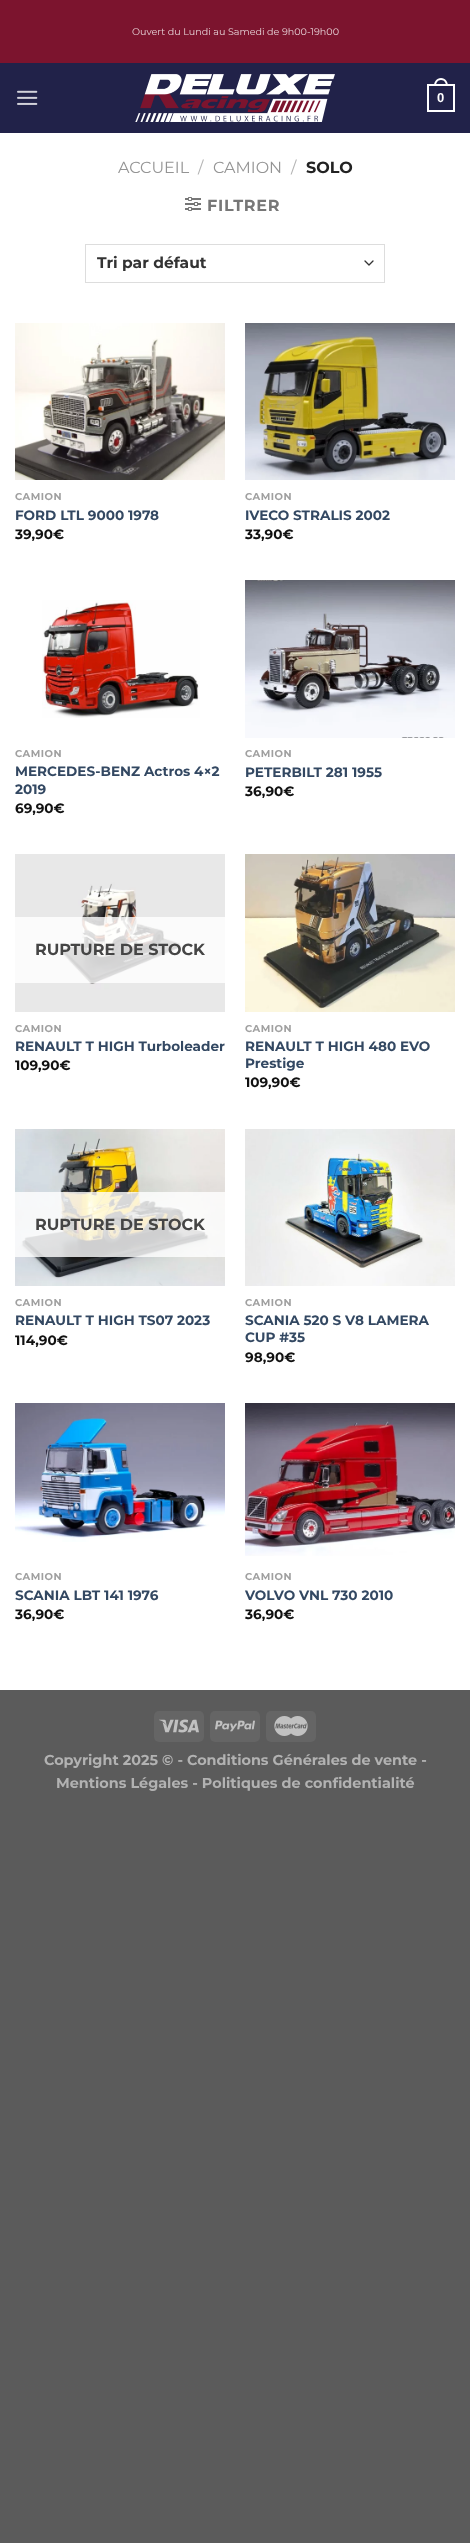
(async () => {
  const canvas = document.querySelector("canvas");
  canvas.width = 470;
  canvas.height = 2543;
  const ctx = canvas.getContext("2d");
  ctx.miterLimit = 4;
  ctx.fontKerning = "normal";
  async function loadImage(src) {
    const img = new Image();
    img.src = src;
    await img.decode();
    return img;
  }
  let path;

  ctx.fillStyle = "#5b5b5b";
  ctx.fillRect(0, 0, 470, 2543);
  for (const [x, y, w, h, color] of [
    [0, 133, 470, 1557, "#ffffff"],
    [0, 63, 470, 70, "#212249"],
    [0, 0, 470, 63, "#7c142e"],
  ]) {
    ctx.fillStyle = color;
    ctx.fillRect(x, y, w, h);
  }
  ctx.drawImage(await loadImage("img/1.png"), 17, 90, 21, 15);
  ctx.drawImage(await loadImage("img/2.png"), 135, 74, 200, 48);
  ctx.strokeStyle = "#ffffff";
  ctx.lineWidth = 2;
  ctx.strokeRect(428, 85, 26, 26);
  ctx.fillStyle = "#ffffff";
  path = new Path2D("M441 78C445.5 78 448 82 448 86H434C434 82 436.5 78 441 78ZM441 80C444.5 80 446 83 446 86H436C436 83 437.5 80 441 80Z");
  ctx.fill(path, "evenodd");
  ctx.drawImage(await loadImage("img/3.png"), 185, 197, 16, 14);
  path = new Path2D("M365 261L369 265L373 261");
  ctx.strokeStyle = "#333333";
  ctx.lineWidth = 1.3;
  ctx.lineCap = "round";
  ctx.lineJoin = "round";
  ctx.stroke(path);
  ctx.strokeStyle = "#dddddd";
  ctx.lineWidth = 1;
  ctx.lineJoin = "miter";
  ctx.strokeRect(85.5, 244.5, 299, 38);
  ctx.drawImage(await loadImage("img/4.png"), 15, 323, 210, 157);
  ctx.drawImage(await loadImage("img/5.png"), 245, 323, 210, 157);
  ctx.drawImage(await loadImage("img/6.png"), 42, 600, 158, 118);
  ctx.drawImage(await loadImage("img/7.png"), 245, 580, 210, 158);
  ctx.drawImage(await loadImage("img/8.png"), 15, 854, 210, 158);
  ctx.fillStyle = "rgba(255, 255, 255, 0.81)";
  ctx.fillRect(15, 917, 210, 66);
  ctx.drawImage(await loadImage("img/9.png"), 245, 854, 210, 158);
  ctx.drawImage(await loadImage("img/10.png"), 15, 1129, 210, 157);
  ctx.fillRect(15, 1192, 210, 65);
  ctx.drawImage(await loadImage("img/11.png"), 245, 1129, 210, 157);
  ctx.drawImage(await loadImage("img/12.png"), 15, 1403, 210, 139);
  ctx.drawImage(await loadImage("img/13.png"), 245, 1403, 210, 153);
  ctx.fillStyle = "#656565";
  ctx.beginPath();
  ctx.roundRect(154, 1711, 50, 31, 5);
  ctx.fill();
  ctx.drawImage(await loadImage("img/14.png"), 159, 1719, 40, 14);
  ctx.beginPath();
  ctx.roundRect(210, 1711, 50, 31, 5);
  ctx.fill();
  ctx.drawImage(await loadImage("img/15.png"), 215, 1720, 40, 12);
  ctx.beginPath();
  ctx.roundRect(266, 1711, 50, 31, 5);
  ctx.fill();
  ctx.drawImage(await loadImage("img/16.png"), 274, 1716, 34, 20);
  ctx.font = "9.6px Montserrat";
  ctx.fillStyle = "#e5d0d5";
  ctx.fillText("Ouvert du Lundi au Samedi de 9h00-19h00", 132, 35);
  ctx.font = "bold 13px Liberation Sans";
  ctx.fillStyle = "#ffffff";
  ctx.fillText("0", 437, 102);
  ctx.font = "16px Montserrat";
  ctx.fillStyle = "#949494";
  ctx.fillText("ACCUEIL", 118, 173);
  ctx.fillStyle = "#b2b2b2";
  ctx.fillText("/", 198, 173);
  ctx.fillStyle = "#949494";
  ctx.fillText("CAMION", 213, 173);
  ctx.fillStyle = "#b2b2b2";
  ctx.fillText("/", 291, 173);
  ctx.font = "bold 16px Montserrat";
  ctx.fillStyle = "#222222";
  ctx.fillText("SOLO", 306, 173);
  ctx.letterSpacing = "0.75px";
  ctx.fillStyle = "#777777";
  ctx.fillText("FILTRER", 207, 211);
  ctx.letterSpacing = "0px";
  ctx.font = "bold 15.5px Montserrat";
  ctx.fillStyle = "#333333";
  ctx.fillText("Tri par défaut", 97, 268);
  ctx.letterSpacing = "0.5px";
  ctx.font = "bold 10px Montserrat";
  ctx.fillStyle = "#a0a0a0";
  ctx.fillText("CAMION", 15, 500);
  ctx.letterSpacing = "0px";
  ctx.font = "bold 13.6px Montserrat";
  ctx.fillStyle = "#334862";
  ctx.fillText("FORD LTL 9000 1978", 15, 520);
  ctx.fillStyle = "#111111";
  ctx.fillText("39,90€", 15, 539);
  ctx.letterSpacing = "0.5px";
  ctx.font = "bold 10px Montserrat";
  ctx.fillStyle = "#a0a0a0";
  ctx.fillText("CAMION", 245, 500);
  ctx.letterSpacing = "0px";
  ctx.font = "bold 13.6px Montserrat";
  ctx.fillStyle = "#334862";
  ctx.fillText("IVECO STRALIS 2002", 245, 520);
  ctx.fillStyle = "#111111";
  ctx.fillText("33,90€", 245, 539);
  ctx.letterSpacing = "0.5px";
  ctx.font = "bold 10px Montserrat";
  ctx.fillStyle = "#a0a0a0";
  ctx.fillText("CAMION", 15, 757);
  ctx.letterSpacing = "0px";
  ctx.font = "bold 13.6px Montserrat";
  ctx.fillStyle = "#334862";
  ctx.fillText("MERCEDES-BENZ Actros 4×2", 15, 776);
  ctx.fillText("2019", 15, 794);
  ctx.fillStyle = "#111111";
  ctx.fillText("69,90€", 15, 813);
  ctx.letterSpacing = "0.5px";
  ctx.font = "bold 10px Montserrat";
  ctx.fillStyle = "#a0a0a0";
  ctx.fillText("CAMION", 245, 757);
  ctx.letterSpacing = "0px";
  ctx.font = "bold 13.6px Montserrat";
  ctx.fillStyle = "#334862";
  ctx.fillText("PETERBILT 281 1955", 245, 777);
  ctx.fillStyle = "#111111";
  ctx.fillText("36,90€", 245, 796);
  ctx.font = "bold 16px Montserrat";
  ctx.fillStyle = "#454545";
  ctx.fillText("RUPTURE DE STOCK", 35, 955);
  ctx.letterSpacing = "0.5px";
  ctx.font = "bold 10px Montserrat";
  ctx.fillStyle = "#a0a0a0";
  ctx.fillText("CAMION", 15, 1032);
  ctx.letterSpacing = "0px";
  ctx.font = "bold 13.6px Montserrat";
  ctx.fillStyle = "#334862";
  ctx.fillText("RENAULT T HIGH Turboleader", 15, 1051);
  ctx.fillStyle = "#111111";
  ctx.fillText("109,90€", 15, 1070);
  ctx.letterSpacing = "0.5px";
  ctx.font = "bold 10px Montserrat";
  ctx.fillStyle = "#a0a0a0";
  ctx.fillText("CAMION", 245, 1032);
  ctx.letterSpacing = "0px";
  ctx.font = "bold 13.6px Montserrat";
  ctx.fillStyle = "#334862";
  ctx.fillText("RENAULT T HIGH 480 EVO", 245, 1051);
  ctx.fillText("Prestige", 245, 1068);
  ctx.fillStyle = "#111111";
  ctx.fillText("109,90€", 245, 1087);
  ctx.font = "bold 16px Montserrat";
  ctx.fillStyle = "#454545";
  ctx.fillText("RUPTURE DE STOCK", 35, 1230);
  ctx.letterSpacing = "0.5px";
  ctx.font = "bold 10px Montserrat";
  ctx.fillStyle = "#a0a0a0";
  ctx.fillText("CAMION", 15, 1306);
  ctx.letterSpacing = "0px";
  ctx.font = "bold 13.6px Montserrat";
  ctx.fillStyle = "#334862";
  ctx.fillText("RENAULT T HIGH TS07 2023", 15, 1325);
  ctx.fillStyle = "#111111";
  ctx.fillText("114,90€", 15, 1345);
  ctx.letterSpacing = "0.5px";
  ctx.font = "bold 10px Montserrat";
  ctx.fillStyle = "#a0a0a0";
  ctx.fillText("CAMION", 245, 1306);
  ctx.letterSpacing = "0px";
  ctx.font = "bold 13.6px Montserrat";
  ctx.fillStyle = "#334862";
  ctx.fillText("SCANIA 520 S V8 LAMERA", 245, 1325);
  ctx.fillText("CUP #35", 245, 1342);
  ctx.fillStyle = "#111111";
  ctx.fillText("98,90€", 245, 1362);
  ctx.letterSpacing = "0.5px";
  ctx.font = "bold 10px Montserrat";
  ctx.fillStyle = "#a0a0a0";
  ctx.fillText("CAMION", 15, 1580);
  ctx.letterSpacing = "0px";
  ctx.font = "bold 13.6px Montserrat";
  ctx.fillStyle = "#334862";
  ctx.fillText("SCANIA LBT 141 1976", 15, 1600);
  ctx.fillStyle = "#111111";
  ctx.fillText("36,90€", 15, 1619);
  ctx.letterSpacing = "0.5px";
  ctx.font = "bold 10px Montserrat";
  ctx.fillStyle = "#a0a0a0";
  ctx.fillText("CAMION", 245, 1580);
  ctx.letterSpacing = "0px";
  ctx.font = "bold 13.6px Montserrat";
  ctx.fillStyle = "#334862";
  ctx.fillText("VOLVO VNL 730 2010", 245, 1600);
  ctx.fillStyle = "#111111";
  ctx.fillText("36,90€", 245, 1619);
  ctx.font = "bold 14.4px Montserrat";
  ctx.fillStyle = "#b2b2b2";
  ctx.fillText("Copyright 2025 © - Conditions Générales de vente -", 44, 1765);
  ctx.fillText("Mentions Légales - Politiques de confidentialité", 56, 1788);
})();
